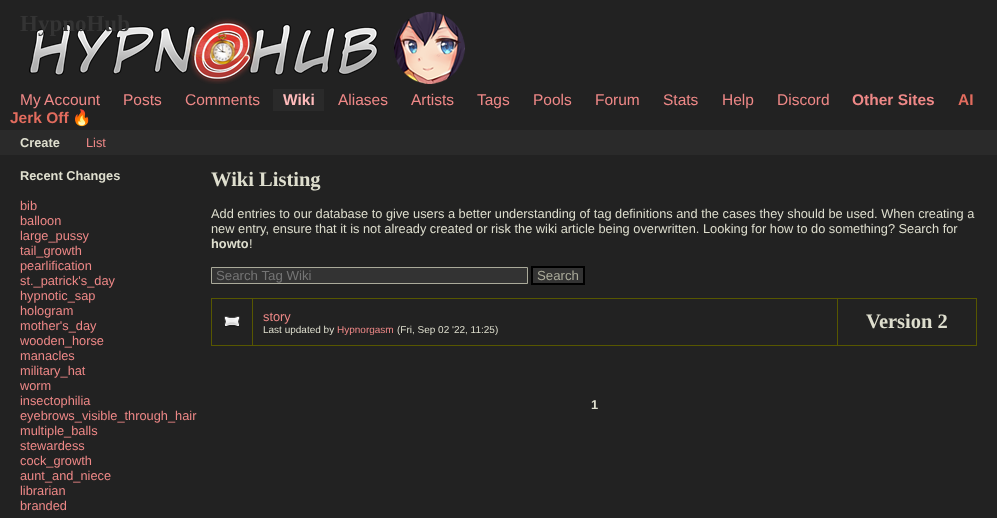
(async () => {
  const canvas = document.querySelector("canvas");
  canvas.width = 997;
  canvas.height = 518;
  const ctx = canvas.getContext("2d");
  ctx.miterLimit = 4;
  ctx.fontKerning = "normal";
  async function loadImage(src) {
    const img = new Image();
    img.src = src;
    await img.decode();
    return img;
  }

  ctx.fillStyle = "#222222";
  ctx.fillRect(0, 0, 997, 518);
  ctx.drawImage(await loadImage("img/1.png"), 29, 12, 436, 72);
  ctx.fillStyle = "#2a2a2a";
  ctx.fillRect(273, 89, 51, 22);
  ctx.fillRect(0, 130, 997, 25);
  ctx.fillStyle = "#333333";
  ctx.beginPath();
  ctx.rect(211.5, 267.5, 316, 16);
  ctx.fill();
  ctx.strokeStyle = "#aaaa9a";
  ctx.stroke();
  ctx.beginPath();
  ctx.rect(532, 267, 52, 17);
  ctx.fill();
  ctx.strokeStyle = "#000000";
  ctx.lineWidth = 2;
  ctx.stroke();
  for (const [x, y, w, h, color] of [
    [837, 298, 140, 1, "#575700"],
    [976, 298, 1, 48, "#575700"],
    [837, 345, 140, 1, "#575700"],
    [837, 298, 1, 48, "#575700"],
    [252, 298, 586, 1, "#575700"],
    [252, 345, 586, 1, "#575700"],
    [252, 298, 1, 48, "#575700"],
    [211, 298, 42, 1, "#575700"],
    [211, 345, 42, 1, "#575700"],
    [211, 298, 1, 48, "#575700"],
  ]) {
    ctx.fillStyle = color;
    ctx.fillRect(x, y, w, h);
  }
  ctx.drawImage(await loadImage("img/2.png"), 224, 316, 16, 11);
  ctx.font = "bold 23px Liberation Serif";
  ctx.fillStyle = "#343434";
  ctx.fillText("HypnoHub", 20, 31);
  ctx.font = "15.5px Liberation Sans";
  ctx.fillStyle = "#ee8887";
  for (const [text, x, y] of [
    ["My Account", 20, 105],
    ["Posts", 123, 105],
    ["Comments", 185, 105],
  ]) {
    ctx.fillText(text, x, y);
  }
  ctx.font = "bold 15.5px Liberation Sans";
  ctx.fillStyle = "#ffbbbb";
  ctx.fillText("Wiki", 283, 105);
  ctx.font = "15.5px Liberation Sans";
  ctx.fillStyle = "#ee8887";
  for (const [text, x, y] of [
    ["Aliases", 338, 105],
    ["Artists", 411, 105],
    ["Tags", 477, 105],
    ["Pools", 533, 105],
    ["Forum", 595, 105],
    ["Stats", 663, 105],
    ["Help", 722, 105],
    ["Discord", 777, 105],
  ]) {
    ctx.fillText(text, x, y);
  }
  ctx.font = "bold 15.5px Liberation Sans";
  ctx.fillText("Other Sites", 852, 105);
  ctx.fillStyle = "#e26c5e";
  ctx.fillText("AI", 958, 105);
  ctx.fillText("Jerk Off", 10, 123);
  ctx.font = "bold 15.5px Noto Color Emoji";
  ctx.fillText("🔥", 72, 123);
  ctx.font = "bold 12.8px Liberation Sans";
  ctx.fillStyle = "#dedece";
  ctx.fillText("Create", 20, 147);
  ctx.font = "12.8px Liberation Sans";
  ctx.fillStyle = "#ee8887";
  ctx.fillText("List", 86, 147);
  ctx.font = "bold 12.8px Liberation Sans";
  ctx.fillStyle = "#dedece";
  ctx.fillText("Recent Changes", 20, 180);
  ctx.font = "12.8px Liberation Sans";
  ctx.fillStyle = "#ee8887";
  for (const [text, x, y] of [
    ["bib", 20, 210],
    ["balloon", 20, 225],
    ["large_pussy", 20, 240],
    ["tail_growth", 20, 255],
    ["pearlification", 20, 270],
    ["st._patrick's_day", 20, 285],
    ["hypnotic_sap", 20, 300],
    ["hologram", 20, 315],
    ["mother's_day", 20, 330],
    ["wooden_horse", 20, 345],
    ["manacles", 20, 360],
    ["military_hat", 20, 375],
    ["worm", 20, 390],
    ["insectophilia", 20, 405],
    ["eyebrows_visible_through_hair", 20, 420],
    ["multiple_balls", 20, 435],
    ["stewardess", 20, 450],
    ["cock_growth", 20, 465],
    ["aunt_and_niece", 20, 480],
    ["librarian", 20, 495],
    ["branded", 20, 510],
  ]) {
    ctx.fillText(text, x, y);
  }
  ctx.font = "bold 20.5px Liberation Serif";
  ctx.fillStyle = "#dedece";
  ctx.fillText("Wiki Listing", 211, 186);
  ctx.font = "12.8px Liberation Sans";
  ctx.fillText("Add entries to our database to give users a better understanding of tag definitions and the cases they should be used. When creating a", 211, 218);
  ctx.fillText("new entry, ensure that it is not already created or risk the wiki article being overwritten. Looking for how to do something? Search for", 211, 233);
  ctx.font = "bold 12.8px Liberation Sans";
  ctx.fillText("howto", 211, 248);
  ctx.font = "12.8px Liberation Sans";
  ctx.fillText("!", 249, 248);
  ctx.font = "13.25px Liberation Sans";
  ctx.fillStyle = "#757575";
  ctx.fillText("Search Tag Wiki", 216, 280);
  ctx.fillStyle = "#aaaa9a";
  ctx.fillText("Search", 537, 280);
  ctx.font = "12.8px Liberation Sans";
  ctx.fillStyle = "#ee8887";
  ctx.fillText("story", 263, 321);
  ctx.font = "10px Liberation Sans";
  ctx.fillStyle = "#dedece";
  ctx.fillText("Last updated by", 263, 333);
  ctx.fillStyle = "#ee8887";
  ctx.fillText("Hypnorgasm", 337, 333);
  ctx.fillStyle = "#dedece";
  ctx.fillText("(Fri, Sep 02 '22, 11:25)", 397, 333);
  ctx.font = "bold 20.5px Liberation Serif";
  ctx.fillText("Version 2", 866, 328);
  ctx.font = "bold 12.8px Liberation Sans";
  ctx.fillText("1", 591, 409);
})();
